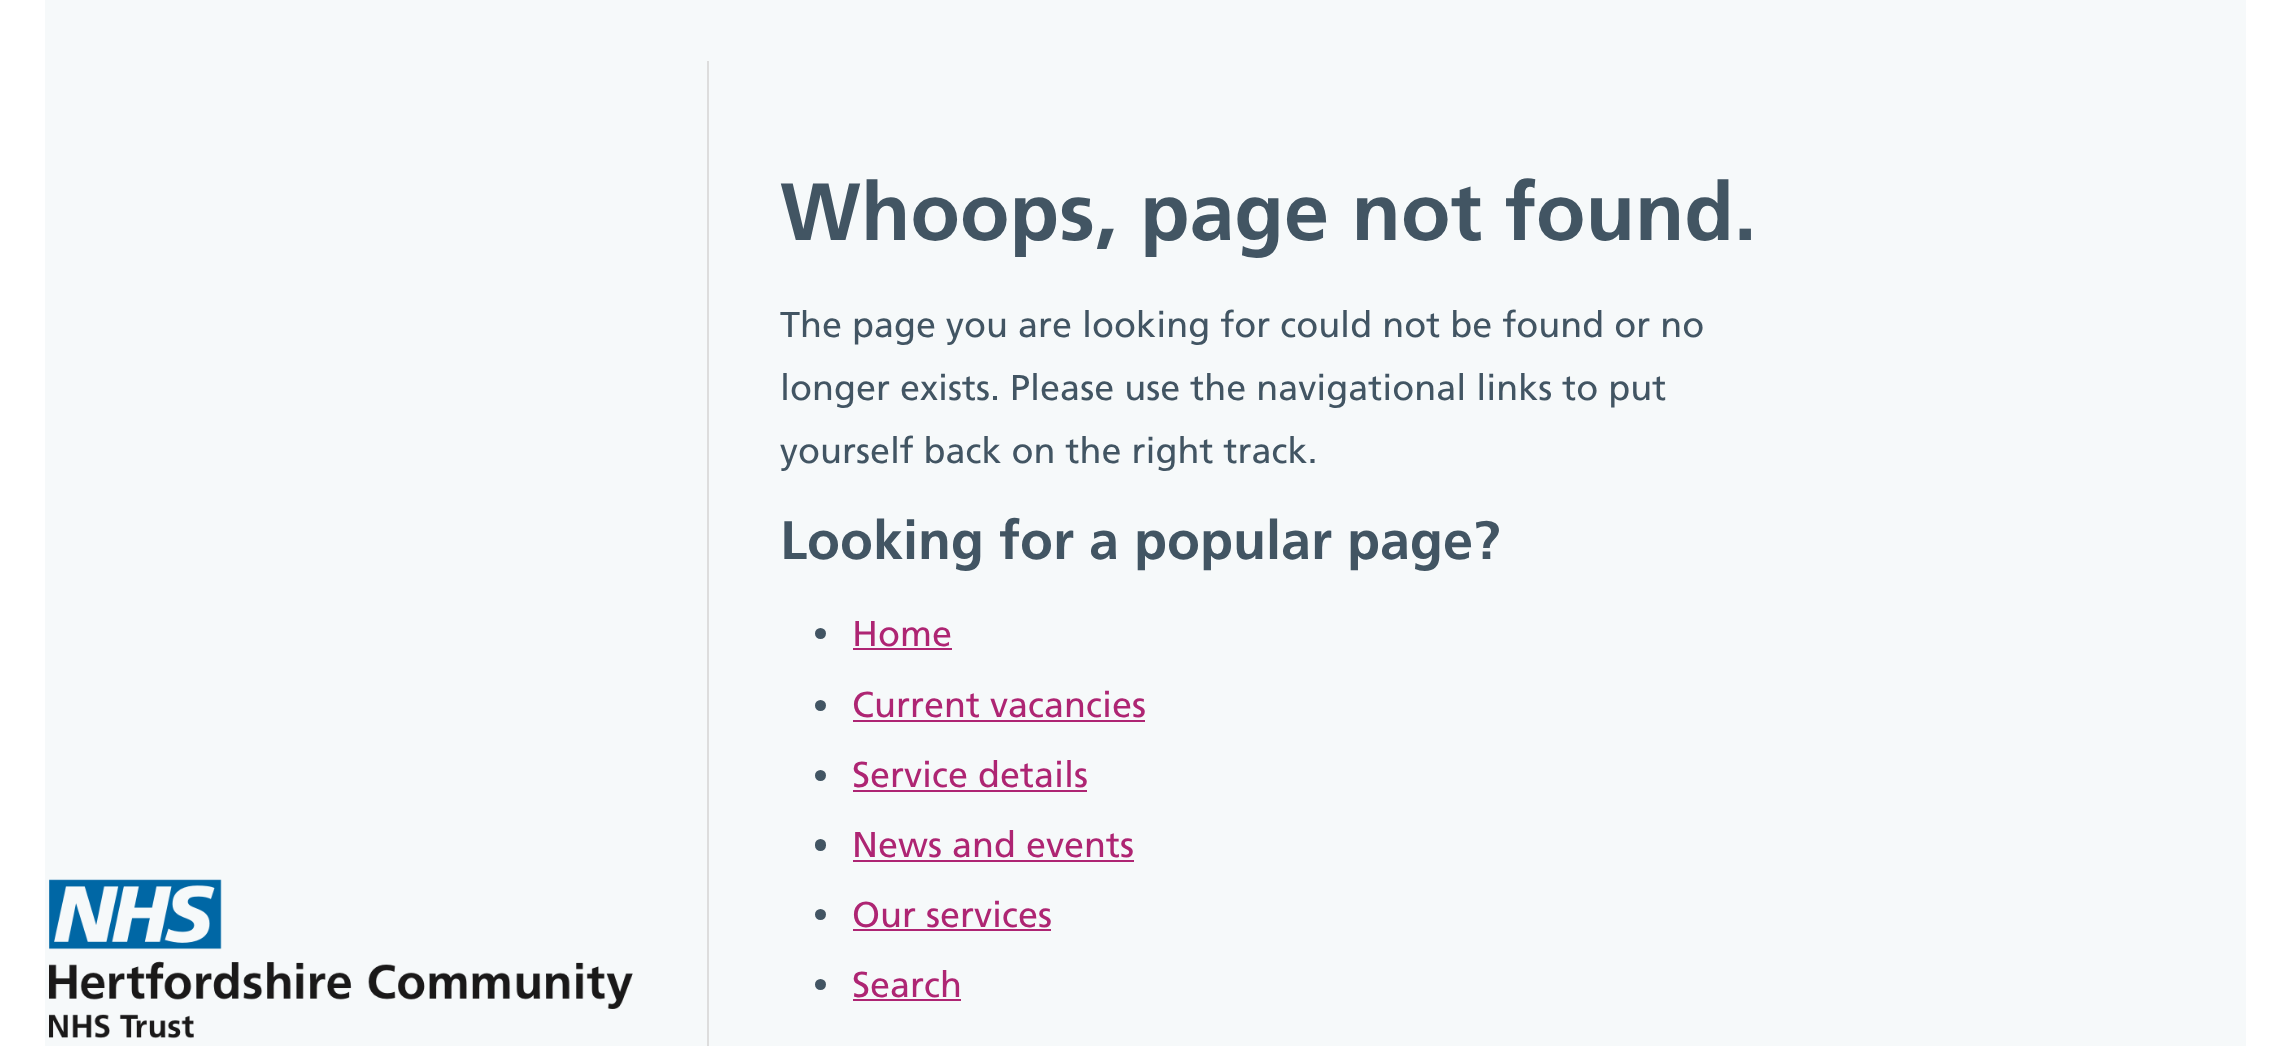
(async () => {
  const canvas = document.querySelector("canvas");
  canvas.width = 2289;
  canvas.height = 1046;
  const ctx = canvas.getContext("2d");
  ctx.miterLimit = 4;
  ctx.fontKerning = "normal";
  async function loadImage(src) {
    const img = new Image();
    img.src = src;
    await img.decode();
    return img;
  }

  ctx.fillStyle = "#ffffff";
  ctx.fillRect(0, 0, 2289, 1046);
  ctx.fillStyle = "#f6f9fa";
  ctx.fillRect(45, 0, 2201, 1046);
  ctx.drawImage(await loadImage("img/1.png"), 49, 879, 584, 160);
  ctx.fillStyle = "#dddddd";
  ctx.fillRect(707, 61, 2, 985);
  ctx.fillStyle = "#425563";
  ctx.beginPath();
  ctx.arc(820.5, 633.5, 5.5, 0, Math.PI * 2);
  ctx.fill();
  ctx.fillStyle = "#ae2573";
  ctx.fillRect(853, 648, 99, 2);
  ctx.fillStyle = "#425563";
  ctx.beginPath();
  ctx.arc(820.5, 705.5, 5.5, 0, Math.PI * 2);
  ctx.fill();
  ctx.fillStyle = "#ae2573";
  ctx.fillRect(853, 720, 292, 2);
  ctx.fillStyle = "#425563";
  ctx.beginPath();
  ctx.arc(820.5, 775.5, 5.5, 0, Math.PI * 2);
  ctx.fill();
  ctx.fillStyle = "#ae2573";
  ctx.fillRect(853, 790, 234, 2);
  ctx.fillStyle = "#425563";
  ctx.beginPath();
  ctx.roundRect(815, 839, 11, 12, 5.5);
  ctx.fill();
  ctx.fillStyle = "#ae2573";
  ctx.fillRect(853, 860, 281, 2);
  ctx.fillStyle = "#425563";
  ctx.beginPath();
  ctx.arc(820.5, 914.5, 5.5, 0, Math.PI * 2);
  ctx.fill();
  ctx.fillStyle = "#ae2573";
  ctx.fillRect(853, 929, 198, 2);
  ctx.fillStyle = "#425563";
  ctx.beginPath();
  ctx.arc(820.5, 984.5, 5.5, 0, Math.PI * 2);
  ctx.fill();
  ctx.fillStyle = "#ae2573";
  ctx.fillRect(853, 999, 108, 2);
  ctx.font = "bold 81px Frutiger";
  ctx.fillStyle = "#425563";
  ctx.fillText("Whoops, page not found.", 780, 240);
  ctx.font = "36px Frutiger";
  for (const [text, x, y] of [
    ["The page you are looking for could not be found or no", 780, 337],
    ["longer exists. Please use the navigational links to put", 780, 400],
    ["yourself back on the right track.", 780, 463],
  ]) {
    ctx.fillText(text, x, y);
  }
  ctx.font = "bold 54px Frutiger";
  ctx.fillText("Looking for a popular page?", 780, 559);
  ctx.font = "36px Frutiger";
  ctx.fillStyle = "#ae2573";
  for (const [text, x, y] of [
    ["Home", 852, 646],
    ["Current vacancies", 852, 717],
    ["Service details", 852, 787],
    ["News and events", 852, 857],
    ["Our services", 852, 927],
    ["Search", 852, 997],
  ]) {
    ctx.fillText(text, x, y);
  }
})();
